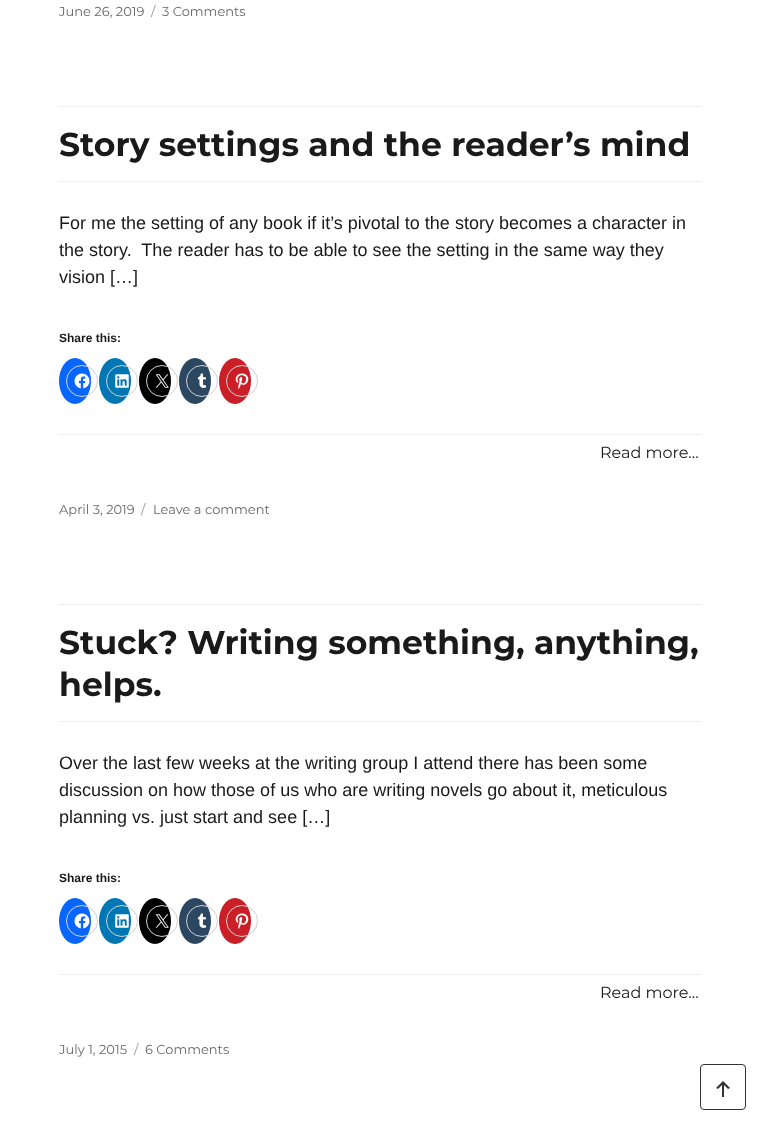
(async () => {
  const canvas = document.querySelector("canvas");
  canvas.width = 761;
  canvas.height = 1133;
  const ctx = canvas.getContext("2d");
  ctx.miterLimit = 4;
  ctx.fontKerning = "normal";
  async function loadImage(src) {
    const img = new Image();
    img.src = src;
    await img.decode();
    return img;
  }

  ctx.fillStyle = "#ffffff";
  ctx.fillRect(0, 0, 761, 1133);
  ctx.fillStyle = "#ededed";
  ctx.fillRect(59, 106, 643, 1);
  ctx.fillRect(59, 181, 643, 1);
  ctx.fillStyle = "#0866ff";
  ctx.beginPath();
  ctx.ellipse(75, 381, 16, 23, 0, 0, Math.PI * 2);
  ctx.fill();
  ctx.beginPath();
  ctx.arc(82, 381, 15.5, 0, Math.PI * 2);
  ctx.strokeStyle = "#d1d1d1";
  ctx.stroke();
  ctx.drawImage(await loadImage("img/1.png"), 74, 373, 16, 16);
  ctx.fillStyle = "#0077b5";
  ctx.beginPath();
  ctx.ellipse(115, 381, 16, 23, 0, 0, Math.PI * 2);
  ctx.fill();
  ctx.beginPath();
  ctx.arc(122, 381, 15.5, 0, Math.PI * 2);
  ctx.stroke();
  ctx.drawImage(await loadImage("img/2.png"), 115, 374, 14, 14);
  ctx.fillStyle = "#000000";
  ctx.beginPath();
  ctx.ellipse(155, 381, 16, 23, 0, 0, Math.PI * 2);
  ctx.fill();
  ctx.beginPath();
  ctx.arc(162, 381, 15.5, 0, Math.PI * 2);
  ctx.stroke();
  ctx.drawImage(await loadImage("img/3.png"), 155, 374, 14, 14);
  ctx.fillStyle = "#2c4762";
  ctx.beginPath();
  ctx.ellipse(195, 381, 16, 23, 0, 0, Math.PI * 2);
  ctx.fill();
  ctx.beginPath();
  ctx.arc(202, 381, 15.5, 0, Math.PI * 2);
  ctx.stroke();
  ctx.drawImage(await loadImage("img/4.png"), 197, 373, 10, 15);
  ctx.fillStyle = "#ca1f27";
  ctx.beginPath();
  ctx.ellipse(235, 381, 16, 23, 0, 0, Math.PI * 2);
  ctx.fill();
  ctx.beginPath();
  ctx.arc(242, 381, 15.5, 0, Math.PI * 2);
  ctx.stroke();
  ctx.drawImage(await loadImage("img/5.png"), 235, 373, 14, 16);
  for (const [x, y, w, h, color] of [
    [59, 434, 643, 1, "#ededed"],
    [59, 604, 643, 1, "#ededed"],
    [59, 721, 643, 1, "#ededed"],
  ]) {
    ctx.fillStyle = color;
    ctx.fillRect(x, y, w, h);
  }
  ctx.fillStyle = "#0866ff";
  ctx.beginPath();
  ctx.ellipse(75, 921, 16, 23, 0, 0, Math.PI * 2);
  ctx.fill();
  ctx.beginPath();
  ctx.arc(82, 921, 15.5, 0, Math.PI * 2);
  ctx.stroke();
  ctx.drawImage(await loadImage("img/1.png"), 74, 913, 16, 16);
  ctx.fillStyle = "#0077b5";
  ctx.beginPath();
  ctx.ellipse(115, 921, 16, 23, 0, 0, Math.PI * 2);
  ctx.fill();
  ctx.beginPath();
  ctx.arc(122, 921, 15.5, 0, Math.PI * 2);
  ctx.stroke();
  ctx.drawImage(await loadImage("img/2.png"), 115, 914, 14, 14);
  ctx.fillStyle = "#000000";
  ctx.beginPath();
  ctx.ellipse(155, 921, 16, 23, 0, 0, Math.PI * 2);
  ctx.fill();
  ctx.beginPath();
  ctx.arc(162, 921, 15.5, 0, Math.PI * 2);
  ctx.stroke();
  ctx.drawImage(await loadImage("img/3.png"), 155, 914, 14, 14);
  ctx.fillStyle = "#2c4762";
  ctx.beginPath();
  ctx.ellipse(195, 921, 16, 23, 0, 0, Math.PI * 2);
  ctx.fill();
  ctx.beginPath();
  ctx.arc(202, 921, 15.5, 0, Math.PI * 2);
  ctx.stroke();
  ctx.drawImage(await loadImage("img/4.png"), 197, 913, 10, 15);
  ctx.fillStyle = "#ca1f27";
  ctx.beginPath();
  ctx.ellipse(235, 921, 16, 23, 0, 0, Math.PI * 2);
  ctx.fill();
  ctx.beginPath();
  ctx.arc(242, 921, 15.5, 0, Math.PI * 2);
  ctx.stroke();
  ctx.drawImage(await loadImage("img/5.png"), 235, 913, 14, 16);
  ctx.fillStyle = "#ededed";
  ctx.fillRect(59, 974, 643, 1);
  ctx.beginPath();
  ctx.roundRect(700.5, 1064.5, 45, 45, 3.5);
  ctx.strokeStyle = "#333333";
  ctx.stroke();
  ctx.drawImage(await loadImage("img/6.png"), 716, 1081, 14, 16);
  ctx.font = "13px Montserrat";
  ctx.fillStyle = "#686868";
  ctx.fillText("June 26, 2019", 59, 16);
  ctx.fillStyle = "#959595";
  ctx.fillText("/", 151, 16);
  ctx.fillStyle = "#686868";
  ctx.fillText("3 Comments", 162, 16);
  ctx.font = "bold 33px Montserrat";
  ctx.fillStyle = "#1a1a1a";
  ctx.fillText("Story settings and the reader’s mind", 59, 156);
  ctx.font = "18px Liberation Sans";
  for (const [text, x, y] of [
    ["For me the setting of any book if it’s pivotal to the story becomes a character in", 59, 229],
    ["the story.  The reader has to be able to see the setting in the same way they", 59, 256],
    ["vision […]", 59, 283],
  ]) {
    ctx.fillText(text, x, y);
  }
  ctx.font = "bold 12px Liberation Sans";
  ctx.fillText("Share this:", 59, 342);
  ctx.font = "16px Montserrat";
  ctx.fillText("Read more...", 600, 458);
  ctx.font = "13px Montserrat";
  ctx.fillStyle = "#686868";
  ctx.fillText("April 3, 2019", 59, 514);
  ctx.fillStyle = "#959595";
  ctx.fillText("/", 141, 514);
  ctx.fillStyle = "#686868";
  ctx.fillText("Leave a comment", 153, 514);
  ctx.font = "bold 33px Montserrat";
  ctx.fillStyle = "#1a1a1a";
  ctx.fillText("Stuck? Writing something, anything,", 59, 654);
  ctx.fillText("helps.", 59, 696);
  ctx.font = "18px Liberation Sans";
  for (const [text, x, y] of [
    ["Over the last few weeks at the writing group I attend there has been some", 59, 769],
    ["discussion on how those of us who are writing novels go about it, meticulous", 59, 796],
    ["planning vs. just start and see […]", 59, 823],
  ]) {
    ctx.fillText(text, x, y);
  }
  ctx.font = "bold 12px Liberation Sans";
  ctx.fillText("Share this:", 59, 882);
  ctx.font = "16px Montserrat";
  ctx.fillText("Read more...", 600, 998);
  ctx.font = "13px Montserrat";
  ctx.fillStyle = "#686868";
  ctx.fillText("July 1, 2015", 59, 1054);
  ctx.fillStyle = "#959595";
  ctx.fillText("/", 134, 1054);
  ctx.fillStyle = "#686868";
  ctx.fillText("6 Comments", 145, 1054);
})();
